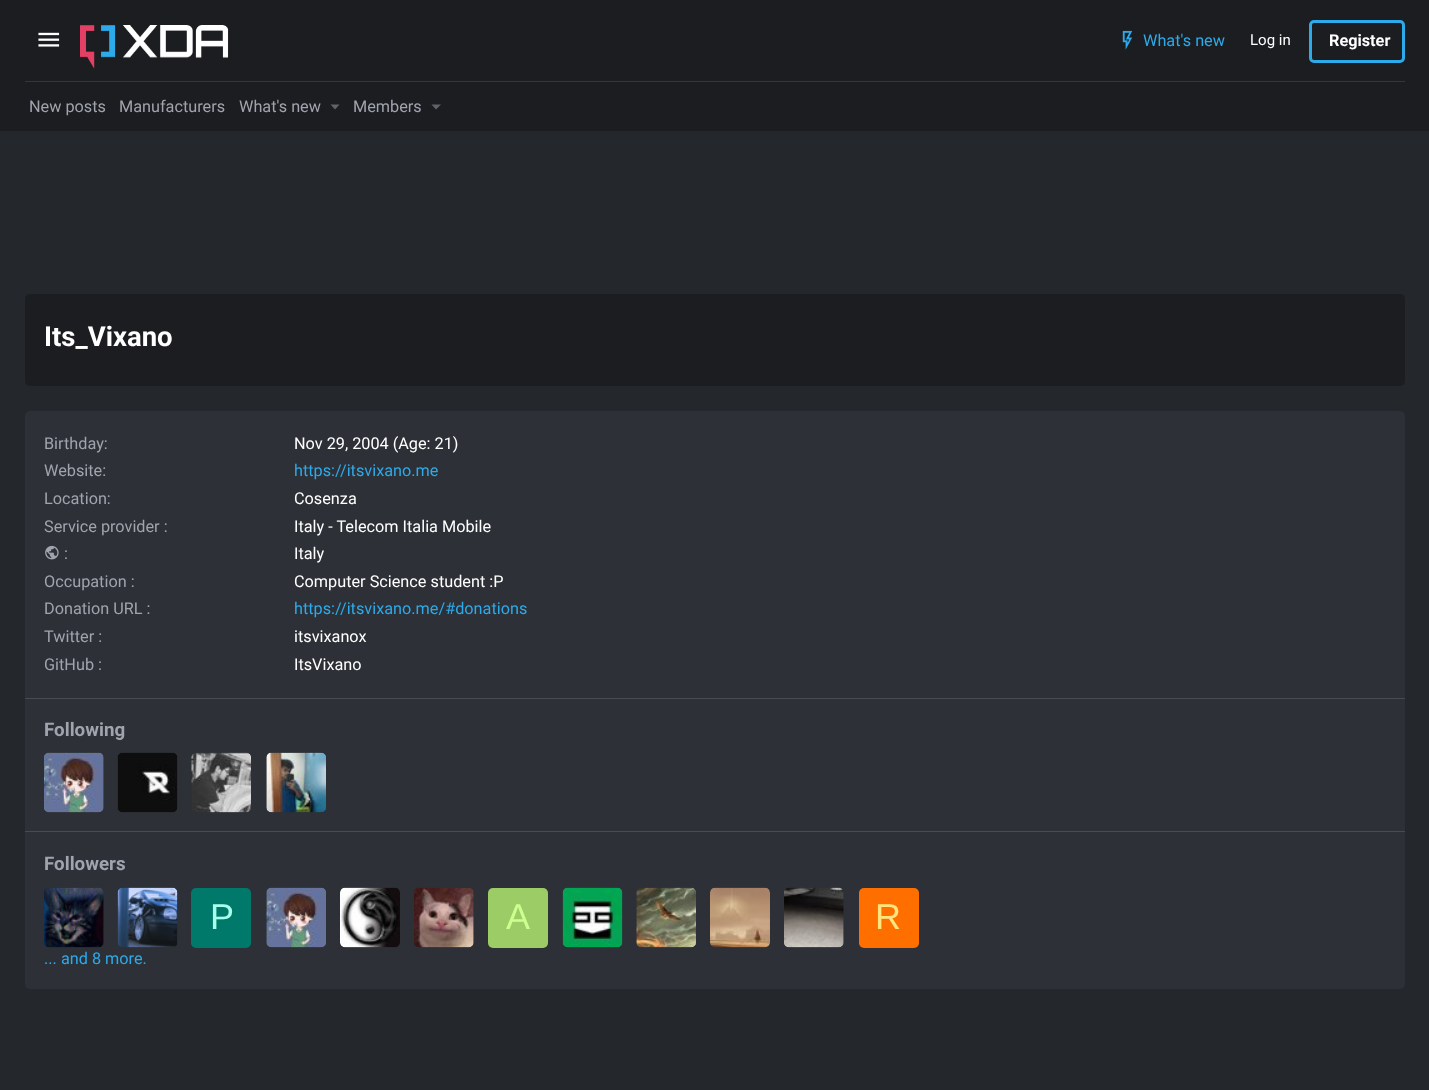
(async () => {
  const canvas = document.querySelector("canvas");
  canvas.width = 1429;
  canvas.height = 1090;
  const ctx = canvas.getContext("2d");
  ctx.miterLimit = 4;
  ctx.fontKerning = "normal";
  async function loadImage(src) {
    const img = new Image();
    img.src = src;
    await img.decode();
    return img;
  }
  let path;

  ctx.fillStyle = "#24272c";
  ctx.fillRect(0, 0, 1429, 1090);
  ctx.fillStyle = "#1b1d21";
  ctx.fillRect(0, 0, 1429, 131);
  ctx.drawImage(await loadImage("img/1.png"), 38, 32, 22, 15);
  ctx.drawImage(await loadImage("img/2.png"), 80, 25, 149, 44);
  ctx.drawImage(await loadImage("img/3.png"), 1122, 30, 11, 20);
  ctx.beginPath();
  ctx.roundRect(1310.5, 21.5, 93, 40, 3.5);
  ctx.strokeStyle = "#2daae9";
  ctx.lineWidth = 3;
  ctx.stroke();
  ctx.fillStyle = "#32363d";
  ctx.fillRect(25, 81, 1380, 1);
  ctx.fillStyle = "#5f626a";
  path = new Path2D("M330.5 104.5L335 109.5L339.5 104.5Z");
  ctx.fill(path);
  path = new Path2D("M431.5 104.5L436 109.5L441 104.5Z");
  ctx.fill(path);
  ctx.fillStyle = "#1b1d21";
  ctx.beginPath();
  ctx.roundRect(25, 294, 1380, 92, 5);
  ctx.fill();
  ctx.fillStyle = "#2d3036";
  ctx.beginPath();
  ctx.roundRect(25, 411, 1380, 578, 5);
  ctx.fill();
  ctx.drawImage(await loadImage("img/4.png"), 45, 545, 14, 15);
  ctx.fillStyle = "#474c54";
  ctx.fillRect(25, 698, 1380, 1);
  ctx.drawImage(await loadImage("img/5.png"), 44, 752, 60, 61);
  ctx.drawImage(await loadImage("img/6.png"), 117, 752, 61, 61);
  ctx.drawImage(await loadImage("img/7.png"), 191, 752, 60, 61);
  ctx.drawImage(await loadImage("img/8.png"), 266, 752, 60, 61);
  ctx.fillRect(25, 831, 1380, 1);
  ctx.drawImage(await loadImage("img/9.png"), 44, 887, 60, 61);
  ctx.drawImage(await loadImage("img/10.png"), 117, 887, 61, 61);
  ctx.fillStyle = "#00796b";
  ctx.beginPath();
  ctx.roundRect(191, 888, 60, 60, 5);
  ctx.fill();
  ctx.drawImage(await loadImage("img/11.png"), 266, 887, 60, 61);
  ctx.drawImage(await loadImage("img/12.png"), 340, 887, 60, 61);
  ctx.drawImage(await loadImage("img/13.png"), 414, 887, 60, 61);
  ctx.fillStyle = "#9ccc65";
  ctx.beginPath();
  ctx.roundRect(488, 888, 60, 60, 5);
  ctx.fill();
  ctx.drawImage(await loadImage("img/14.png"), 562, 887, 61, 61);
  ctx.drawImage(await loadImage("img/15.png"), 636, 887, 60, 61);
  ctx.drawImage(await loadImage("img/16.png"), 710, 887, 60, 61);
  ctx.drawImage(await loadImage("img/17.png"), 784, 887, 60, 61);
  ctx.fillStyle = "#ff6f00";
  ctx.beginPath();
  ctx.roundRect(859, 888, 60, 60, 5);
  ctx.fill();
  ctx.font = "16.25px Roboto";
  ctx.fillStyle = "#2daae9";
  ctx.fillText("What's new", 1143, 46);
  ctx.font = "15px Roboto";
  ctx.fillStyle = "#ffffff";
  ctx.fillText("Log in", 1250, 45);
  ctx.font = "bold 16.25px Roboto";
  ctx.fillText("Register", 1329, 46);
  ctx.font = "16.25px Roboto";
  ctx.fillStyle = "#a1a3ae";
  for (const [text, x, y] of [
    ["New posts", 29, 112],
    ["Manufacturers", 119, 112],
    ["What's new", 239, 112],
    ["Members", 353, 112],
  ]) {
    ctx.fillText(text, x, y);
  }
  ctx.font = "bold 27.5px Roboto";
  ctx.fillStyle = "#ffffff";
  ctx.fillText("Its_Vixano", 44, 346);
  ctx.font = "16.25px Roboto";
  ctx.fillStyle = "#a1a3ae";
  ctx.fillText("Birthday:", 44, 449);
  ctx.fillStyle = "#ffffff";
  ctx.fillText("Nov 29, 2004 (Age: 21)", 294, 449);
  ctx.fillStyle = "#a1a3ae";
  ctx.fillText("Website:", 44, 476);
  ctx.fillStyle = "#2daae9";
  ctx.fillText("https://itsvixano.me", 294, 476);
  ctx.fillStyle = "#a1a3ae";
  ctx.fillText("Location:", 44, 504);
  ctx.fillStyle = "#ffffff";
  ctx.fillText("Cosenza", 294, 504);
  ctx.fillStyle = "#a1a3ae";
  ctx.fillText("Service provider :", 44, 532);
  ctx.fillStyle = "#ffffff";
  ctx.fillText("Italy - Telecom Italia Mobile", 294, 532);
  ctx.fillStyle = "#a1a3ae";
  ctx.fillText(":", 64, 559);
  ctx.fillStyle = "#ffffff";
  ctx.fillText("Italy", 294, 559);
  ctx.fillStyle = "#a1a3ae";
  ctx.fillText("Occupation :", 44, 587);
  ctx.fillStyle = "#ffffff";
  ctx.fillText("Computer Science student :P", 294, 587);
  ctx.fillStyle = "#a1a3ae";
  ctx.fillText("Donation URL :", 44, 614);
  ctx.fillStyle = "#2daae9";
  ctx.fillText("https://itsvixano.me/#donations", 294, 614);
  ctx.fillStyle = "#a1a3ae";
  ctx.fillText("Twitter :", 44, 642);
  ctx.fillStyle = "#ffffff";
  ctx.fillText("itsvixanox", 294, 642);
  ctx.fillStyle = "#a1a3ae";
  ctx.fillText("GitHub :", 44, 670);
  ctx.fillStyle = "#ffffff";
  ctx.fillText("ItsVixano", 294, 670);
  ctx.font = "bold 18.75px Roboto";
  ctx.fillStyle = "#a1a3ae";
  ctx.fillText("Following", 44, 736);
  ctx.fillText("Followers", 44, 870);
  ctx.font = "36px Liberation Sans";
  ctx.fillStyle = "#a7ffeb";
  ctx.fillText("P", 210, 929);
  ctx.fillStyle = "#ccff90";
  ctx.fillText("A", 506, 929);
  ctx.fillStyle = "#ffe57f";
  ctx.fillText("R", 875, 929);
  ctx.font = "16.25px Roboto";
  ctx.fillStyle = "#2daae9";
  ctx.fillText("... and 8 more.", 44, 964);
})();
